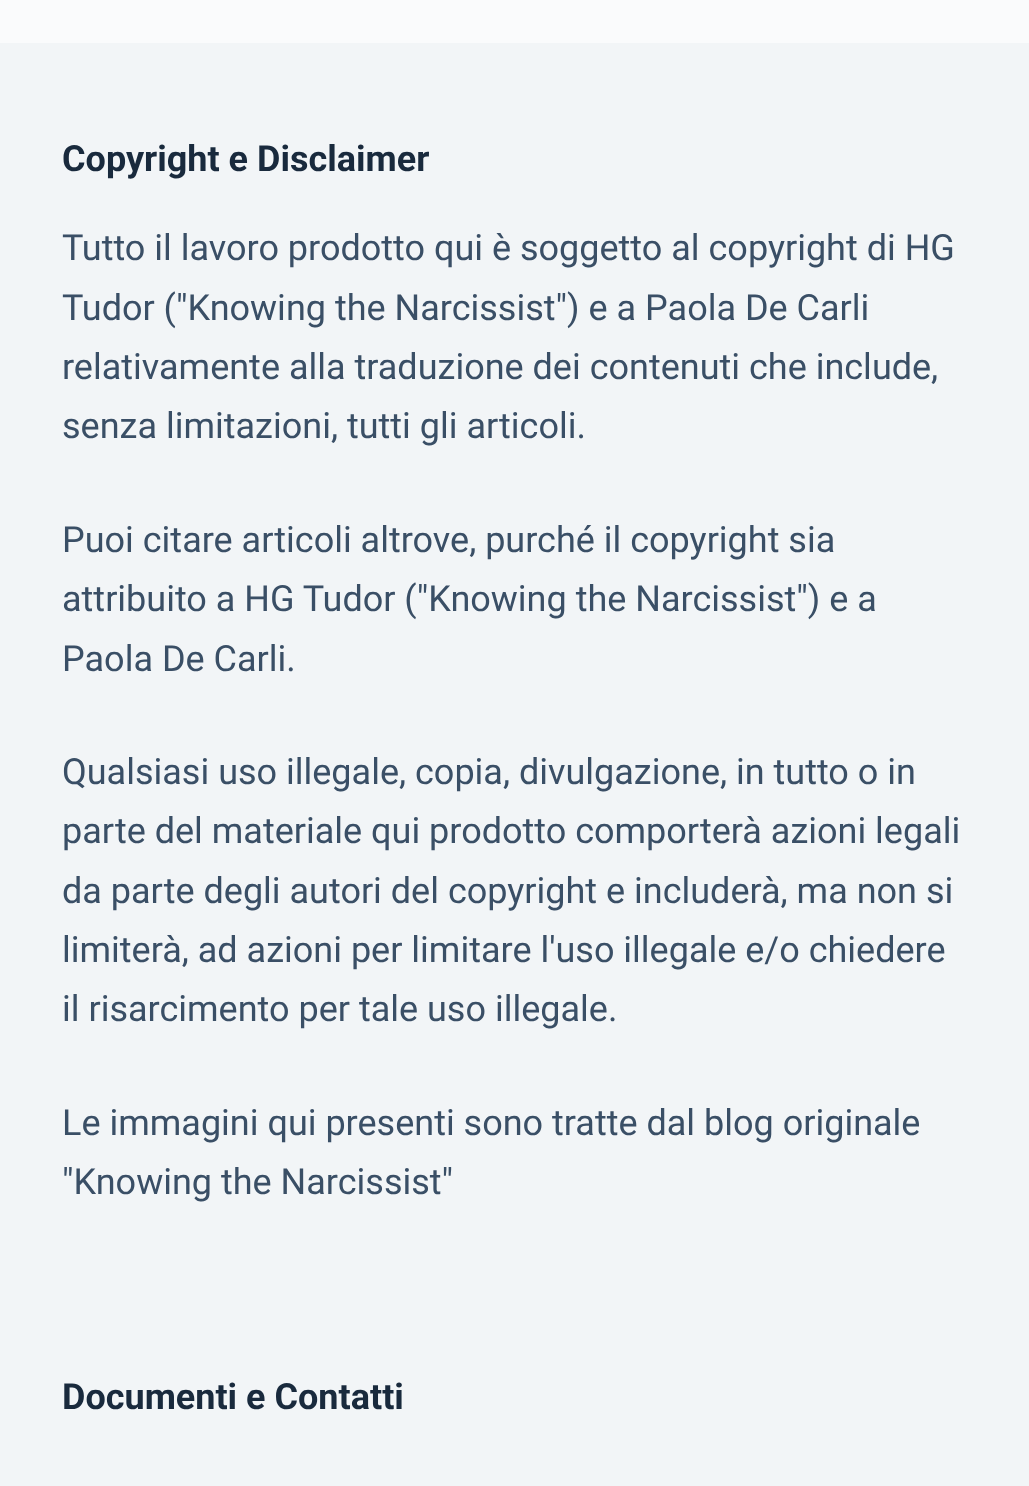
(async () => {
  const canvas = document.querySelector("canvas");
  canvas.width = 1029;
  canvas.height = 1486;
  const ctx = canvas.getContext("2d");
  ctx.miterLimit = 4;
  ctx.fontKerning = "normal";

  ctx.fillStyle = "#fafbfc";
  ctx.fillRect(0, 0, 1029, 1486);
  ctx.fillStyle = "#f2f5f7";
  ctx.fillRect(0, 43, 1029, 1443);
  ctx.font = "bold 36px Roboto";
  ctx.fillStyle = "#192a3d";
  ctx.fillText("Copyright e Disclaimer", 62, 171);
  ctx.font = "36px Roboto";
  ctx.fillStyle = "#3a4f66";
  for (const [text, x, y] of [
    ["Tutto il lavoro prodotto qui è soggetto al copyright di HG", 62, 260],
    ["Tudor (\"Knowing the Narcissist\") e a Paola De Carli", 62, 320],
    ["relativamente alla traduzione dei contenuti che include,", 62, 379],
    ["senza limitazioni, tutti gli articoli.", 62, 438],
    ["Puoi citare articoli altrove, purché il copyright sia", 62, 552],
    ["attribuito a HG Tudor (\"Knowing the Narcissist\") e a", 62, 611],
    ["Paola De Carli.", 62, 671],
    ["Qualsiasi uso illegale, copia, divulgazione, in tutto o in", 62, 784],
    ["parte del materiale qui prodotto comporterà azioni legali", 62, 843],
    ["da parte degli autori del copyright e includerà, ma non si", 62, 903],
    ["limiterà, ad azioni per limitare l'uso illegale e/o chiedere", 62, 962],
    ["il risarcimento per tale uso illegale.", 62, 1021],
    ["Le immagini qui presenti sono tratte dal blog originale", 62, 1135],
    ["\"Knowing the Narcissist\"", 62, 1194],
  ]) {
    ctx.fillText(text, x, y);
  }
  ctx.font = "bold 36px Roboto";
  ctx.fillStyle = "#192a3d";
  ctx.fillText("Documenti e Contatti", 62, 1409);
})();
